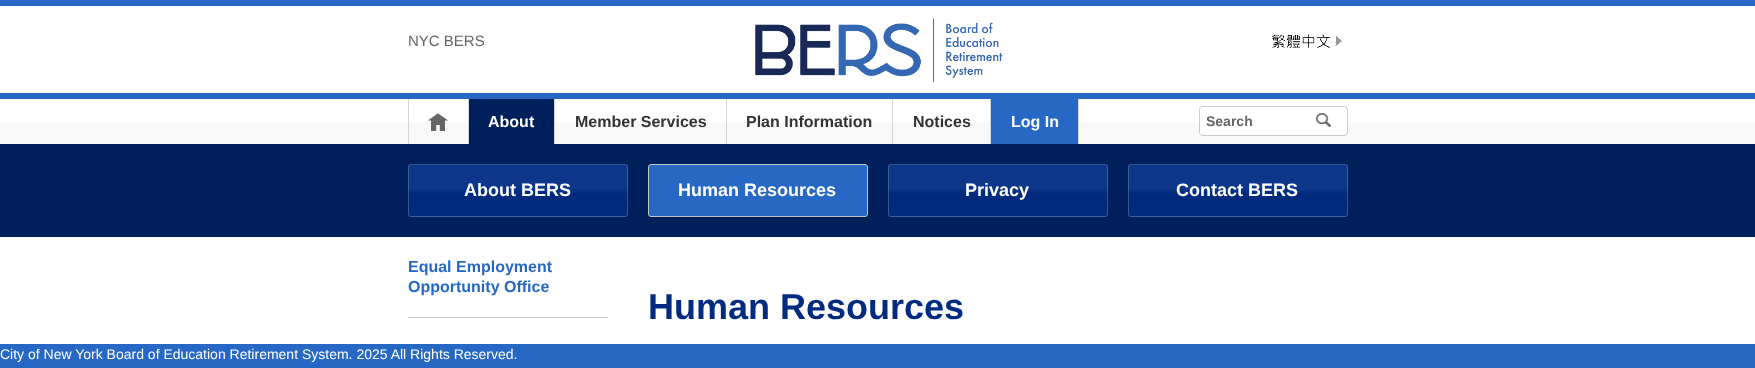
(async () => {
  const canvas = document.querySelector("canvas");
  canvas.width = 1755;
  canvas.height = 368;
  const ctx = canvas.getContext("2d");
  ctx.miterLimit = 4;
  ctx.fontKerning = "normal";
  async function loadImage(src) {
    const img = new Image();
    img.src = src;
    await img.decode();
    return img;
  }
  let gradient, path;

  ctx.fillStyle = "#ffffff";
  ctx.fillRect(0, 0, 1755, 368);
  ctx.drawImage(await loadImage("img/1.png"), 0, 122, 1755, 22);
  ctx.fillStyle = "#2668c4";
  ctx.fillRect(0, 0, 1755, 6);
  ctx.fillRect(0, 93, 1755, 6);
  ctx.drawImage(await loadImage("img/2.png"), 755, 18, 248, 65);
  ctx.drawImage(await loadImage("img/3.png"), 1272, 34, 70, 14);
  ctx.fillStyle = "#d5d5d5";
  ctx.fillRect(468, 99, 1, 45);
  ctx.fillRect(408, 99, 1, 45);
  ctx.drawImage(await loadImage("img/4.png"), 428, 113, 20, 18);
  for (const [x, y, w, h, color] of [
    [469, 99, 85, 45, "#00205c"],
    [554, 99, 1, 45, "#d5d5d5"],
    [726, 99, 1, 45, "#d5d5d5"],
    [892, 99, 1, 45, "#d5d5d5"],
    [990, 99, 1, 45, "#d5d5d5"],
    [991, 99, 87, 45, "#2668c4"],
    [1078, 99, 1, 45, "#d5d5d5"],
  ]) {
    ctx.fillStyle = color;
    ctx.fillRect(x, y, w, h);
  }
  ctx.fillStyle = "#ffffff";
  ctx.beginPath();
  ctx.roundRect(1199, 106, 117, 30, [4, 0, 0, 4]);
  ctx.fill();
  ctx.save();
  ctx.beginPath();
  ctx.rect(1191, 106, 125, 30);
  ctx.clip();
  ctx.fillStyle = "#cccccc";
  path = new Path2D("M1203 106H1321V136H1203C1201 136 1199 134 1199 132V110C1199 108 1201 106 1203 106ZM1203 107H1321V135H1203C1201 135 1200 134 1200 132V110C1200 108 1201 107 1203 107Z");
  ctx.fill(path, "evenodd");
  ctx.restore();
  ctx.beginPath();
  ctx.roundRect(1316, 106, 32, 30, [0, 4, 4, 0]);
  ctx.fill();
  ctx.drawImage(await loadImage("img/5.png"), 1316, 113, 15, 14);
  ctx.fillStyle = "#cccccc";
  path = new Path2D("M1316 106H1344C1346 106 1348 108 1348 110V132C1348 134 1346 136 1344 136H1316ZM1316 107H1344C1345.5 107 1347 108.5 1347 110V132C1347 133.5 1345.5 135 1344 135H1316Z");
  ctx.fill(path, "evenodd");
  ctx.fillStyle = "#00205c";
  ctx.fillRect(0, 144, 1755, 93);
  ctx.fillStyle = "#002c85";
  ctx.beginPath();
  ctx.roundRect(408, 164, 220, 53, 3);
  ctx.fill();
  gradient = ctx.createLinearGradient(518, 165, 518, 114);
  gradient.addColorStop(0, "rgba(0, 0, 0, 0.05)");
  gradient.addColorStop(0.43, "rgba(0, 0, 0, 0.05)");
  gradient.addColorStop(0.56, "rgba(255, 255, 255, 0.05)");
  gradient.addColorStop(1, "rgba(255, 255, 255, 0.05)");
  ctx.fillStyle = gradient;
  ctx.fillRect(408, 164, 220, 1);
  gradient = ctx.createLinearGradient(518, 216, 518, 165);
  gradient.addColorStop(0, "rgba(0, 0, 0, 0.05)");
  gradient.addColorStop(0.43, "rgba(0, 0, 0, 0.05)");
  gradient.addColorStop(0.56, "rgba(255, 255, 255, 0.05)");
  gradient.addColorStop(1, "rgba(255, 255, 255, 0.05)");
  ctx.fillStyle = gradient;
  ctx.fillRect(408, 165, 220, 51);
  gradient = ctx.createLinearGradient(518, 267, 518, 216);
  gradient.addColorStop(0, "rgba(0, 0, 0, 0.05)");
  gradient.addColorStop(0.43, "rgba(0, 0, 0, 0.05)");
  gradient.addColorStop(0.56, "rgba(255, 255, 255, 0.05)");
  gradient.addColorStop(1, "rgba(255, 255, 255, 0.05)");
  ctx.fillStyle = gradient;
  ctx.fillRect(408, 216, 220, 1);
  ctx.beginPath();
  ctx.roundRect(408.5, 164.5, 219, 52, 2.5);
  ctx.strokeStyle = "rgba(255, 255, 255, 0.2)";
  ctx.stroke();
  ctx.fillStyle = "#2668c4";
  ctx.beginPath();
  ctx.roundRect(648.5, 164.5, 219, 52, 2.5);
  ctx.fill();
  ctx.strokeStyle = "#c2c7ca";
  ctx.stroke();
  ctx.fillStyle = "#002c85";
  ctx.beginPath();
  ctx.roundRect(888, 164, 220, 53, 3);
  ctx.fill();
  gradient = ctx.createLinearGradient(998, 165, 998, 114);
  gradient.addColorStop(0, "rgba(0, 0, 0, 0.05)");
  gradient.addColorStop(0.43, "rgba(0, 0, 0, 0.05)");
  gradient.addColorStop(0.56, "rgba(255, 255, 255, 0.05)");
  gradient.addColorStop(1, "rgba(255, 255, 255, 0.05)");
  ctx.fillStyle = gradient;
  ctx.fillRect(888, 164, 220, 1);
  gradient = ctx.createLinearGradient(998, 216, 998, 165);
  gradient.addColorStop(0, "rgba(0, 0, 0, 0.05)");
  gradient.addColorStop(0.43, "rgba(0, 0, 0, 0.05)");
  gradient.addColorStop(0.56, "rgba(255, 255, 255, 0.05)");
  gradient.addColorStop(1, "rgba(255, 255, 255, 0.05)");
  ctx.fillStyle = gradient;
  ctx.fillRect(888, 165, 220, 51);
  gradient = ctx.createLinearGradient(998, 267, 998, 216);
  gradient.addColorStop(0, "rgba(0, 0, 0, 0.05)");
  gradient.addColorStop(0.43, "rgba(0, 0, 0, 0.05)");
  gradient.addColorStop(0.56, "rgba(255, 255, 255, 0.05)");
  gradient.addColorStop(1, "rgba(255, 255, 255, 0.05)");
  ctx.fillStyle = gradient;
  ctx.fillRect(888, 216, 220, 1);
  ctx.beginPath();
  ctx.roundRect(888.5, 164.5, 219, 52, 2.5);
  ctx.strokeStyle = "rgba(255, 255, 255, 0.2)";
  ctx.stroke();
  ctx.fillStyle = "#002c85";
  ctx.beginPath();
  ctx.roundRect(1128, 164, 220, 53, 3);
  ctx.fill();
  gradient = ctx.createLinearGradient(1238, 165, 1238, 114);
  gradient.addColorStop(0, "rgba(0, 0, 0, 0.05)");
  gradient.addColorStop(0.43, "rgba(0, 0, 0, 0.05)");
  gradient.addColorStop(0.56, "rgba(255, 255, 255, 0.05)");
  gradient.addColorStop(1, "rgba(255, 255, 255, 0.05)");
  ctx.fillStyle = gradient;
  ctx.fillRect(1128, 164, 220, 1);
  gradient = ctx.createLinearGradient(1238, 216, 1238, 165);
  gradient.addColorStop(0, "rgba(0, 0, 0, 0.05)");
  gradient.addColorStop(0.43, "rgba(0, 0, 0, 0.05)");
  gradient.addColorStop(0.56, "rgba(255, 255, 255, 0.05)");
  gradient.addColorStop(1, "rgba(255, 255, 255, 0.05)");
  ctx.fillStyle = gradient;
  ctx.fillRect(1128, 165, 220, 51);
  gradient = ctx.createLinearGradient(1238, 267, 1238, 216);
  gradient.addColorStop(0, "rgba(0, 0, 0, 0.05)");
  gradient.addColorStop(0.43, "rgba(0, 0, 0, 0.05)");
  gradient.addColorStop(0.56, "rgba(255, 255, 255, 0.05)");
  gradient.addColorStop(1, "rgba(255, 255, 255, 0.05)");
  ctx.fillStyle = gradient;
  ctx.fillRect(1128, 216, 220, 1);
  ctx.beginPath();
  ctx.roundRect(1128.5, 164.5, 219, 52, 2.5);
  ctx.stroke();
  ctx.fillStyle = "#c2c7ca";
  ctx.fillRect(408, 317, 200, 1);
  ctx.fillStyle = "#2668c4";
  ctx.fillRect(0, 344, 1755, 24);
  ctx.font = "15px Liberation Sans";
  ctx.fillStyle = "#666666";
  ctx.fillText("NYC BERS", 408, 46);
  ctx.font = "bold 16px Liberation Sans";
  ctx.fillStyle = "#ffffff";
  ctx.fillText("About", 488, 127);
  ctx.fillStyle = "#333333";
  for (const [text, x, y] of [
    ["Member Services", 575, 127],
    ["Plan Information", 746, 127],
    ["Notices", 913, 127],
  ]) {
    ctx.fillText(text, x, y);
  }
  ctx.fillStyle = "#ffffff";
  ctx.fillText("Log In", 1011, 127);
  ctx.font = "bold 14px Liberation Sans";
  ctx.fillStyle = "#666666";
  ctx.fillText("Search", 1206, 126);
  ctx.font = "bold 18px Liberation Sans";
  ctx.fillStyle = "#ffffff";
  for (const [text, x, y] of [
    ["About BERS", 464, 196],
    ["Human Resources", 678, 196],
    ["Privacy", 965, 196],
    ["Contact BERS", 1176, 196],
  ]) {
    ctx.fillText(text, x, y);
  }
  ctx.font = "bold 16px Liberation Sans";
  ctx.fillStyle = "#2668c4";
  ctx.fillText("Equal Employment", 408, 272);
  ctx.fillText("Opportunity Office", 408, 292);
  ctx.font = "bold 36px Liberation Sans";
  ctx.fillStyle = "#002b80";
  ctx.fillText("Human Resources", 648, 319);
  ctx.font = "14px Liberation Sans";
  ctx.fillStyle = "#ffffff";
  ctx.fillText("City of New York Board of Education Retirement System. 2025 All Rights Reserved.", 0, 359);
})();
